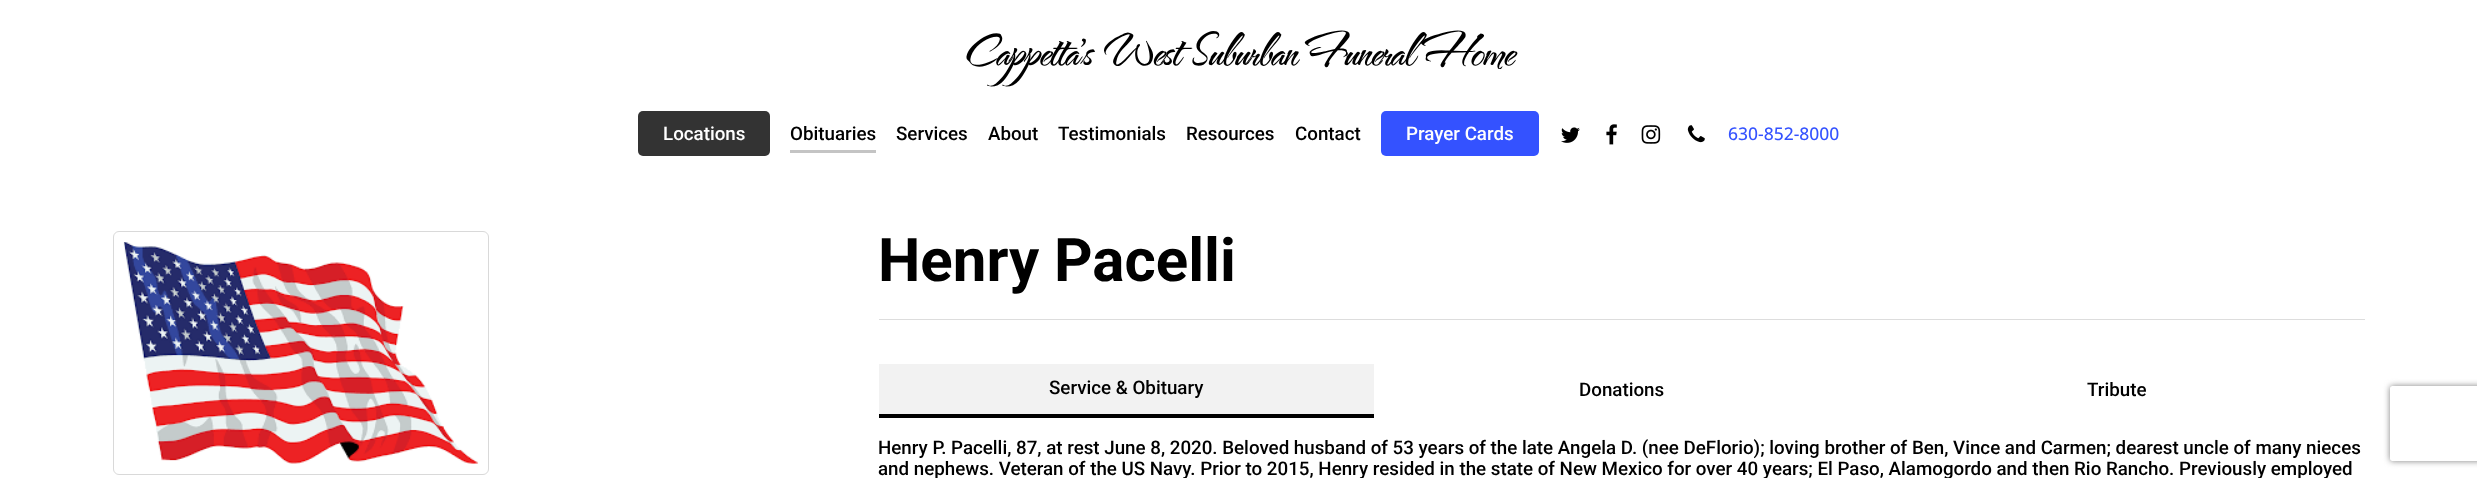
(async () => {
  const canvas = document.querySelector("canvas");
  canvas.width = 2477;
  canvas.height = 478;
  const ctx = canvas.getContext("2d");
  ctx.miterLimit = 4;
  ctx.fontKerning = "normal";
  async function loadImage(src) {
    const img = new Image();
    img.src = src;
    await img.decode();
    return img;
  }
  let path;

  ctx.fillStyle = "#ffffff";
  ctx.fillRect(0, 0, 2477, 478);
  ctx.fillStyle = "#333333";
  ctx.beginPath();
  ctx.roundRect(638, 111, 132, 45, 5);
  ctx.fill();
  ctx.fillStyle = "#c4c4c4";
  ctx.fillRect(790, 150, 86, 3);
  ctx.fillStyle = "#3452ff";
  ctx.beginPath();
  ctx.roundRect(1381, 111, 158, 45, 5);
  ctx.fill();
  ctx.drawImage(await loadImage("img/1.png"), 1561, 127, 19, 16);
  ctx.drawImage(await loadImage("img/2.png"), 1606, 124, 11, 21);
  ctx.drawImage(await loadImage("img/3.png"), 1641, 125, 20, 19);
  ctx.drawImage(await loadImage("img/4.png"), 1687, 125, 18, 18);
  ctx.beginPath();
  ctx.roundRect(113.5, 231.5, 375, 243, 5.5);
  ctx.strokeStyle = "#d9d9d9";
  ctx.stroke();
  ctx.drawImage(await loadImage("img/5.png"), 123, 242, 356, 222);
  for (const [x, y, w, h, color] of [
    [879, 319, 1486, 1, "#dddddd"],
    [879, 364, 495, 50, "#f2f2f2"],
    [879, 414, 495, 4, "#000000"],
  ]) {
    ctx.fillStyle = color;
    ctx.fillRect(x, y, w, h);
  }
  ctx.save();
  path = new Path2D("M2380 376H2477V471H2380ZM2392.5 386H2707.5C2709 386 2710 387 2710 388.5V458.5C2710 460 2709 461 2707.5 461H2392.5C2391 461 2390 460 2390 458.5V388.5C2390 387 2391 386 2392.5 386Z");
  ctx.clip(path, "evenodd");
  ctx.fillStyle = "#808080";
  ctx.filter = "blur(3px)";
  ctx.beginPath();
  ctx.roundRect(2390, 386, 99, 75, 2.5);
  ctx.fill();
  ctx.filter = "none";
  ctx.restore();
  ctx.letterSpacing = "-1.25px";
  ctx.font = "bold 52.5px The Nautigal";
  ctx.fillText("Cappetta's West Suburban Funeral Home", 964, 65);
  ctx.letterSpacing = "0px";
  ctx.font = "500 18.75px Roboto";
  ctx.fillStyle = "#ffffff";
  ctx.fillText("Locations", 663, 140);
  ctx.fillStyle = "#000000";
  for (const [text, x, y] of [
    ["Obituaries", 790, 140],
    ["Services", 896, 140],
    ["About", 988, 140],
    ["Testimonials", 1058, 140],
    ["Resources", 1186, 140],
    ["Contact", 1295, 140],
  ]) {
    ctx.fillText(text, x, y);
  }
  ctx.fillStyle = "#ffffff";
  ctx.fillText("Prayer Cards", 1406, 140);
  ctx.font = "500 17.5px Open Sans";
  ctx.fillStyle = "#3452ff";
  ctx.fillText("630-852-8000", 1728, 140);
  ctx.font = "bold 60px Roboto";
  ctx.fillStyle = "#000000";
  ctx.fillText("Henry Pacelli", 878, 281);
  ctx.font = "500 18.75px Roboto";
  for (const [text, x, y] of [
    ["Service & Obituary", 1049, 394],
    ["Donations", 1579, 396],
    ["Tribute", 2087, 396],
    ["Henry P. Pacelli, 87, at rest June 8, 2020. Beloved husband of 53 years of the late Angela D. (nee DeFlorio); loving brother of Ben, Vince and Carmen; dearest uncle of many nieces", 878, 454],
    ["and nephews. Veteran of the US Navy. Prior to 2015, Henry resided in the state of New Mexico for over 40 years; El Paso, Alamogordo and then Rio Rancho. Previously employed", 878, 475],
  ]) {
    ctx.fillText(text, x, y);
  }
})();
